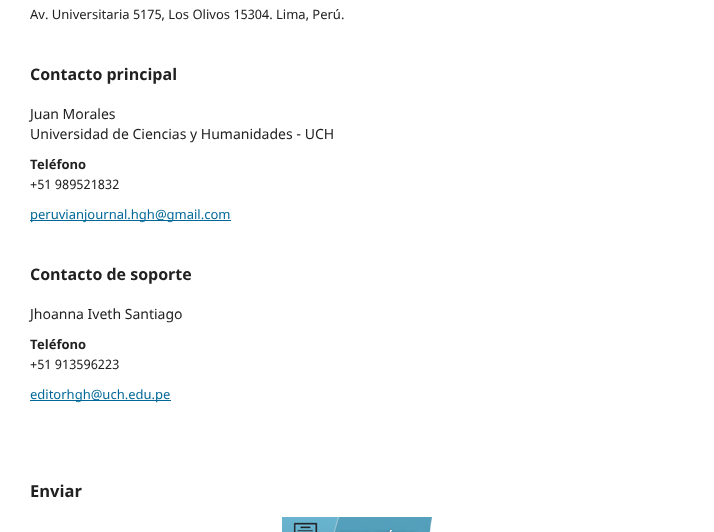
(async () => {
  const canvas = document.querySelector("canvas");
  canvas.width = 714;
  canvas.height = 532;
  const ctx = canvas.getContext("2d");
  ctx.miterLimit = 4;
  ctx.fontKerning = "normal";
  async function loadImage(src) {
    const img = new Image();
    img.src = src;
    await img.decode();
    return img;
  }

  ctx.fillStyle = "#ffffff";
  ctx.fillRect(0, 0, 714, 532);
  ctx.fillStyle = "#006798";
  ctx.fillRect(30, 220, 201, 1);
  ctx.fillRect(30, 400, 141, 1);
  ctx.drawImage(await loadImage("img/1.png"), 282, 517, 150, 15);
  ctx.font = "13px Noto Sans";
  ctx.fillStyle = "#212121";
  ctx.fillText("Av. Universitaria 5175, Los Olivos 15304. Lima, Perú.", 30, 19);
  ctx.font = "bold 16px Noto Sans";
  ctx.fillText("Contacto principal", 30, 80);
  ctx.font = "14px Noto Sans";
  ctx.fillText("Juan Morales", 30, 119);
  ctx.fillText("Universidad de Ciencias y Humanidades - UCH", 30, 139);
  ctx.font = "bold 13px Noto Sans";
  ctx.fillText("Teléfono", 30, 169);
  ctx.font = "13px Noto Sans";
  ctx.fillText("+51 989521832", 30, 189);
  ctx.fillStyle = "#006798";
  ctx.fillText("peruvianjournal.hgh@gmail.com", 30, 219);
  ctx.font = "bold 16px Noto Sans";
  ctx.fillStyle = "#212121";
  ctx.fillText("Contacto de soporte", 30, 280);
  ctx.font = "14px Noto Sans";
  ctx.fillText("Jhoanna Iveth Santiago", 30, 319);
  ctx.font = "bold 13px Noto Sans";
  ctx.fillText("Teléfono", 30, 349);
  ctx.font = "13px Noto Sans";
  ctx.fillText("+51 913596223", 30, 369);
  ctx.fillStyle = "#006798";
  ctx.fillText("editorhgh@uch.edu.pe", 30, 399);
  ctx.font = "bold 16.5px Noto Sans";
  ctx.fillStyle = "#212121";
  ctx.fillText("Enviar", 30, 497);
})();
